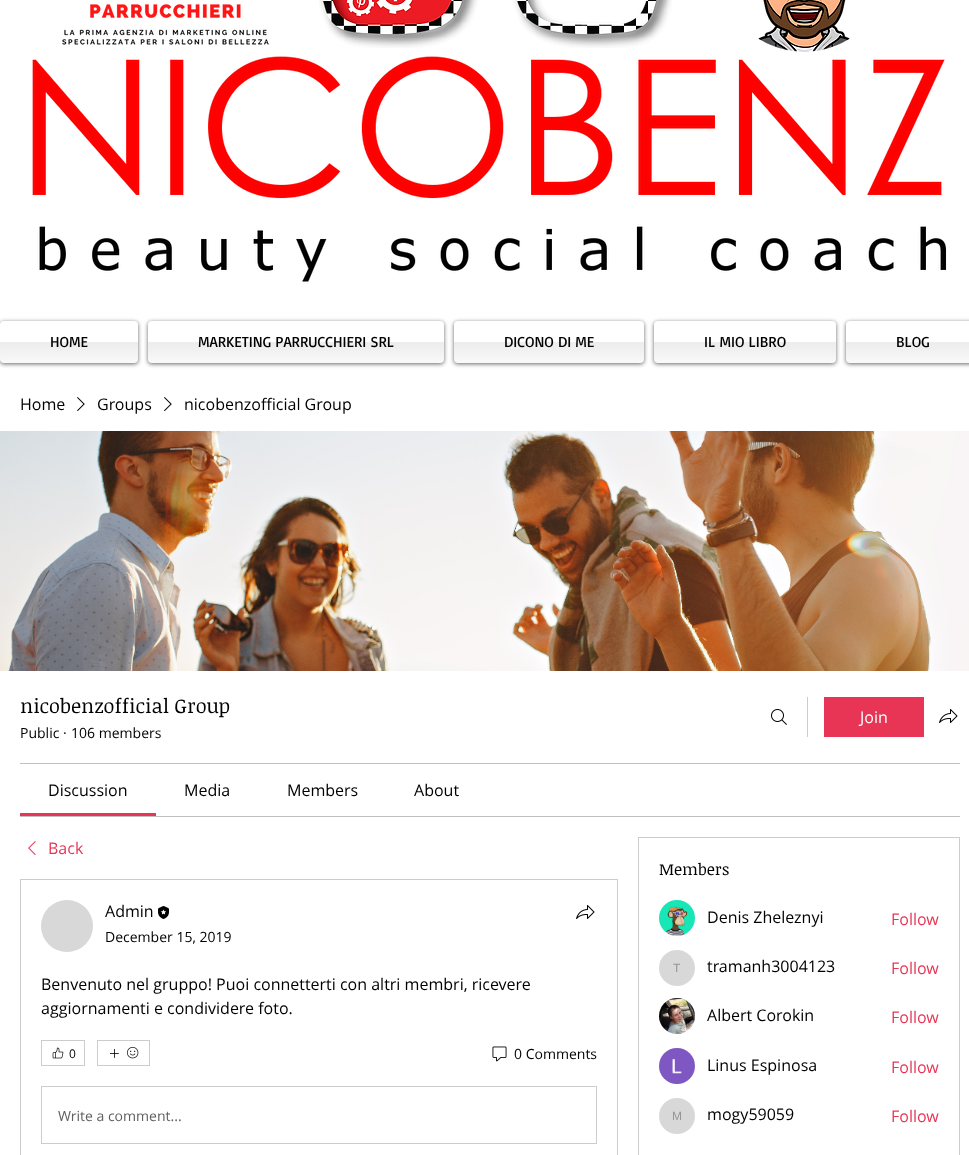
(async () => {
  const canvas = document.querySelector("canvas");
  canvas.width = 969;
  canvas.height = 1155;
  const ctx = canvas.getContext("2d");
  ctx.miterLimit = 4;
  ctx.fontKerning = "normal";
  async function loadImage(src) {
    const img = new Image();
    img.src = src;
    await img.decode();
    return img;
  }

  ctx.fillStyle = "#ffffff";
  ctx.fillRect(0, 0, 969, 1155);
  ctx.drawImage(await loadImage("img/1.png"), 62, 4, 207, 41);
  ctx.drawImage(await loadImage("img/2.png"), 319, 0, 353, 48);
  ctx.drawImage(await loadImage("img/3.png"), 758, 0, 92, 52);
  ctx.drawImage(await loadImage("img/4.png"), 32, 56, 915, 228);
  ctx.fillStyle = "rgba(0, 0, 0, 0.6)";
  ctx.filter = "blur(2px)";
  ctx.beginPath();
  ctx.roundRect(0, 322, 138, 42, 4);
  ctx.fill();
  ctx.filter = "none";
  ctx.fillStyle = "#ffffff";
  ctx.beginPath();
  ctx.roundRect(0, 321, 138, 42, 4);
  ctx.fill();
  ctx.drawImage(await loadImage("img/5.png"), 0, 342, 138, 21);
  ctx.fillStyle = "rgba(0, 0, 0, 0.6)";
  ctx.filter = "blur(2px)";
  ctx.beginPath();
  ctx.roundRect(148, 322, 296, 42, 4);
  ctx.fill();
  ctx.filter = "none";
  ctx.fillStyle = "#ffffff";
  ctx.beginPath();
  ctx.roundRect(148, 321, 296, 42, 4);
  ctx.fill();
  ctx.drawImage(await loadImage("img/6.png"), 148, 342, 296, 21);
  ctx.fillStyle = "rgba(0, 0, 0, 0.6)";
  ctx.filter = "blur(2px)";
  ctx.beginPath();
  ctx.roundRect(454, 322, 190, 42, 4);
  ctx.fill();
  ctx.filter = "none";
  ctx.fillStyle = "#ffffff";
  ctx.beginPath();
  ctx.roundRect(454, 321, 190, 42, 4);
  ctx.fill();
  ctx.drawImage(await loadImage("img/7.png"), 454, 342, 190, 21);
  ctx.fillStyle = "rgba(0, 0, 0, 0.6)";
  ctx.filter = "blur(2px)";
  ctx.beginPath();
  ctx.roundRect(654, 322, 182, 42, 4);
  ctx.fill();
  ctx.filter = "none";
  ctx.fillStyle = "#ffffff";
  ctx.beginPath();
  ctx.roundRect(654, 321, 182, 42, 4);
  ctx.fill();
  ctx.drawImage(await loadImage("img/8.png"), 654, 342, 182, 21);
  ctx.fillStyle = "rgba(0, 0, 0, 0.6)";
  ctx.filter = "blur(2px)";
  ctx.beginPath();
  ctx.roundRect(846, 322, 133, 42, 4);
  ctx.fill();
  ctx.filter = "none";
  ctx.fillStyle = "#ffffff";
  ctx.beginPath();
  ctx.roundRect(846, 321, 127, 42, 4);
  ctx.fill();
  ctx.drawImage(await loadImage("img/9.png"), 846, 342, 123, 21);
  ctx.drawImage(await loadImage("img/10.png"), 77, 397, 8, 14);
  ctx.drawImage(await loadImage("img/10.png"), 164, 397, 8, 14);
  ctx.drawImage(await loadImage("img/11.png"), 0, 431, 969, 240);
  ctx.drawImage(await loadImage("img/12.png"), 771, 709, 16, 16);
  ctx.fillStyle = "#cccccc";
  ctx.fillRect(807, 697, 1, 40);
  ctx.fillStyle = "#e83556";
  ctx.fillRect(824, 697, 100, 40);
  ctx.drawImage(await loadImage("img/13.png"), 939, 709, 19, 14);
  for (const [x, y, w, h, color] of [
    [20, 763, 940, 1, "#c3bfbe"],
    [20, 816, 940, 1, "#c3bfbe"],
    [20, 813, 136, 3, "#e83556"],
  ]) {
    ctx.fillStyle = color;
    ctx.fillRect(x, y, w, h);
  }
  ctx.drawImage(await loadImage("img/14.png"), 28, 841, 8, 14);
  ctx.strokeStyle = "#cccccc";
  ctx.strokeRect(20.5, 879.5, 597, 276);
  ctx.fillStyle = "#d8d8d8";
  ctx.beginPath();
  ctx.arc(67, 926, 26, 0, Math.PI * 2);
  ctx.fill();
  ctx.drawImage(await loadImage("img/15.png"), 158, 906, 11, 13);
  ctx.drawImage(await loadImage("img/13.png"), 576, 905, 19, 14);
  ctx.strokeRect(41.5, 1040.5, 43, 25);
  ctx.drawImage(await loadImage("img/16.png"), 52, 1047, 12, 12);
  ctx.strokeRect(97.5, 1040.5, 52, 25);
  ctx.drawImage(await loadImage("img/17.png"), 110, 1049, 9, 9);
  ctx.drawImage(await loadImage("img/18.png"), 127, 1047, 12, 12);
  ctx.drawImage(await loadImage("img/19.png"), 492, 1046, 15, 16);
  ctx.strokeRect(41.5, 1086.5, 555, 57);
  ctx.strokeRect(638.5, 837.5, 321, 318);
  ctx.drawImage(await loadImage("img/20.png"), 659, 900, 36, 36);
  ctx.beginPath();
  ctx.arc(677, 968, 18, 0, Math.PI * 2);
  ctx.fill();
  ctx.drawImage(await loadImage("img/21.png"), 659, 998, 36, 36);
  ctx.drawImage(await loadImage("img/22.png"), 659, 1048, 36, 36);
  ctx.beginPath();
  ctx.arc(677, 1116, 18, 0, Math.PI * 2);
  ctx.fill();
  ctx.font = "15px Basic";
  ctx.fillStyle = "#000000";
  for (const [text, x, y] of [
    ["HOME", 50, 347],
    ["MARKETING PARRUCCHIERI SRL", 198, 347],
    ["DICONO DI ME", 504, 347],
    ["IL MIO LIBRO", 704, 347],
    ["BLOG", 896, 347],
  ]) {
    ctx.fillText(text, x, y);
  }
  ctx.font = "16px Open Sans";
  for (const [text, x, y] of [
    ["Home", 20, 410],
    ["Groups", 97, 410],
    ["nicobenzofficial Group", 184, 410],
  ]) {
    ctx.fillText(text, x, y);
  }
  ctx.font = "20px Noticia Text";
  ctx.fillText("nicobenzofficial Group", 20, 713);
  ctx.font = "14px Open Sans";
  for (const [text, x, y] of [
    ["Public", 20, 738],
    ["·", 63, 738],
    ["106 members", 71, 738],
  ]) {
    ctx.fillText(text, x, y);
  }
  ctx.font = "16px Open Sans";
  ctx.fillStyle = "#ffffff";
  ctx.fillText("Join", 860, 723);
  ctx.fillStyle = "#000000";
  for (const [text, x, y] of [
    ["Discussion", 48, 796],
    ["Media", 184, 796],
    ["Members", 287, 796],
    ["About", 414, 796],
  ]) {
    ctx.fillText(text, x, y);
  }
  ctx.fillStyle = "#e83556";
  ctx.fillText("Back", 48, 854);
  ctx.fillStyle = "#000000";
  ctx.fillText("Admin", 105, 917);
  ctx.font = "14px Open Sans";
  ctx.fillText("December 15, 2019", 105, 942);
  ctx.font = "16px Open Sans";
  ctx.fillText("Benvenuto nel gruppo! Puoi connetterti con altri membri, ricevere", 41, 990);
  ctx.fillText("aggiornamenti e condividere foto.", 41, 1014);
  ctx.font = "12px Open Sans";
  ctx.fillText("0", 69, 1058);
  ctx.font = "14px Open Sans";
  ctx.fillText("0 Comments", 514, 1059);
  ctx.fillStyle = "#606060";
  ctx.fillText("Write a comment...", 58, 1121);
  ctx.font = "16px Noticia Text";
  ctx.fillStyle = "#000000";
  ctx.fillText("Members", 659, 875);
  ctx.font = "16px Open Sans";
  ctx.fillText("Denis Zheleznyi", 707, 923);
  ctx.fillStyle = "#e83556";
  ctx.fillText("Follow", 891, 925);
  ctx.font = "12px Liberation Sans";
  ctx.fillStyle = "#979797";
  ctx.fillText("T", 673, 972);
  ctx.font = "16px Open Sans";
  ctx.fillStyle = "#000000";
  ctx.fillText("tramanh3004123", 707, 972);
  ctx.fillStyle = "#e83556";
  ctx.fillText("Follow", 891, 974);
  ctx.fillStyle = "#000000";
  ctx.fillText("Albert Corokin", 707, 1021);
  ctx.fillStyle = "#e83556";
  ctx.fillText("Follow", 891, 1023);
  ctx.fillStyle = "#000000";
  ctx.fillText("Linus Espinosa", 707, 1071);
  ctx.fillStyle = "#e83556";
  ctx.fillText("Follow", 891, 1073);
  ctx.font = "12px Liberation Sans";
  ctx.fillStyle = "#979797";
  ctx.fillText("M", 672, 1120);
  ctx.font = "16px Open Sans";
  ctx.fillStyle = "#000000";
  ctx.fillText("mogy59059", 707, 1120);
  ctx.fillStyle = "#e83556";
  ctx.fillText("Follow", 891, 1122);
})();
